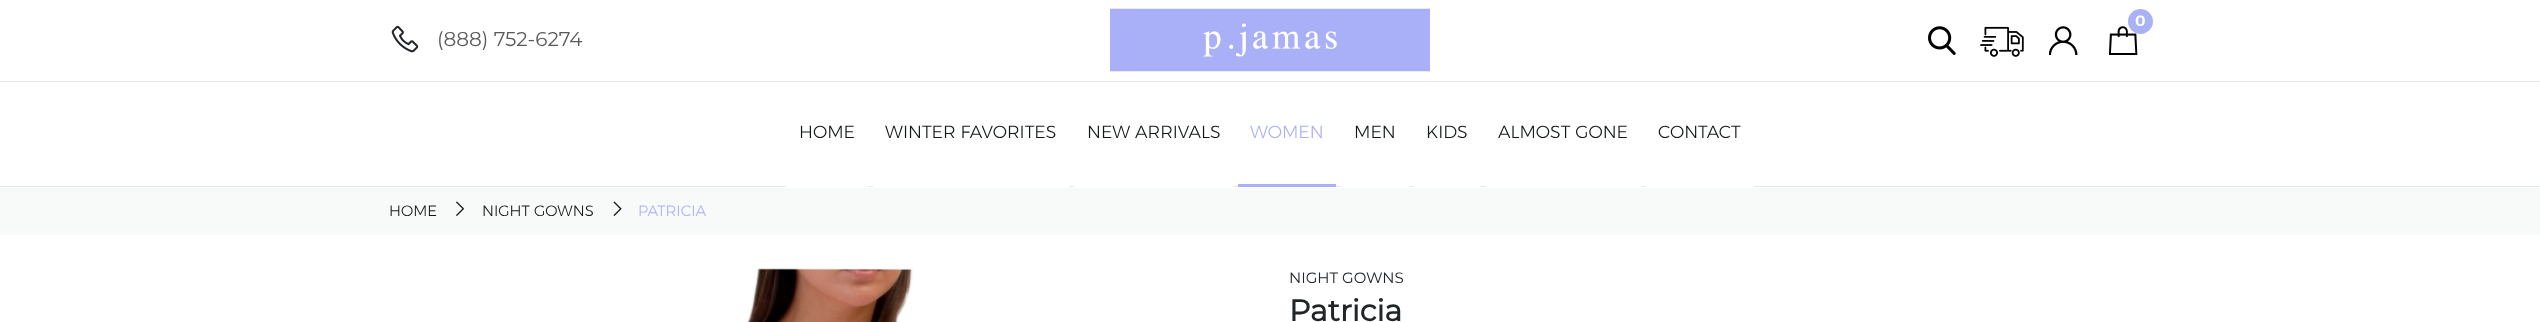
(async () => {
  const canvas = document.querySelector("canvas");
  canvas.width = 2540;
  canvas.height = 322;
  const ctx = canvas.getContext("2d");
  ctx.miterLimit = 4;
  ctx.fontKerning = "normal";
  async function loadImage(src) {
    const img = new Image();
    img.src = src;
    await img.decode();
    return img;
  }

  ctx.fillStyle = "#ffffff";
  ctx.fillRect(0, 0, 2540, 322);
  ctx.drawImage(await loadImage("img/1.png"), 1110, 8, 320, 64);
  ctx.drawImage(await loadImage("img/2.png"), 2109, 26, 29, 29);
  ctx.fillStyle = "#aab2f6";
  ctx.beginPath();
  ctx.arc(2140.5, 21.5, 12.5, 0, Math.PI * 2);
  ctx.fill();
  ctx.drawImage(await loadImage("img/3.png"), 1928, 26, 28, 29);
  ctx.drawImage(await loadImage("img/4.png"), 1980, 26, 44, 31);
  ctx.drawImage(await loadImage("img/5.png"), 2049, 26, 29, 29);
  ctx.drawImage(await loadImage("img/6.png"), 391, 25, 28, 28);
  for (const [x, y, w, h, color] of [
    [0, 81, 2540, 1, "#e7e8e8"],
    [0, 186, 2540, 1, "#e7e8e8"],
    [786, 186, 82, 1, "#ffffff"],
    [873, 186, 196, 1, "#ffffff"],
    [1074, 186, 159, 1, "#ffffff"],
    [1238, 184, 98, 3, "#aab2f6"],
    [1341, 186, 68, 1, "#ffffff"],
    [1414, 186, 66, 1, "#ffffff"],
    [1486, 186, 155, 1, "#ffffff"],
    [1646, 186, 108, 1, "#ffffff"],
    [0, 188, 2540, 47, "#f8f9f9"],
  ]) {
    ctx.fillStyle = color;
    ctx.fillRect(x, y, w, h);
  }
  ctx.drawImage(await loadImage("img/7.png"), 456, 201, 9, 15);
  ctx.drawImage(await loadImage("img/8.png"), 613, 201, 9, 15);
  ctx.drawImage(await loadImage("img/9.png"), 746, 268, 167, 54);
  ctx.font = "600 15px Montserrat";
  ctx.fillStyle = "#ffffff";
  ctx.fillText("0", 2135, 26);
  ctx.font = "20px Montserrat";
  ctx.fillStyle = "#5a5a5a";
  ctx.fillText("(888) 752-6274", 437, 46);
  ctx.font = "300 17.5px Montserrat";
  ctx.fillStyle = "#111616";
  for (const [text, x, y] of [
    ["HOME", 799, 138],
    ["WINTER FAVORITES", 885, 138],
    ["NEW ARRIVALS", 1087, 138],
  ]) {
    ctx.fillText(text, x, y);
  }
  ctx.fillStyle = "#aab2f6";
  ctx.fillText("WOMEN", 1250, 138);
  ctx.fillStyle = "#111616";
  for (const [text, x, y] of [
    ["MEN", 1354, 138],
    ["KIDS", 1426, 138],
    ["ALMOST GONE", 1498, 138],
    ["CONTACT", 1658, 138],
  ]) {
    ctx.fillText(text, x, y);
  }
  ctx.font = "300 15px Montserrat";
  ctx.fillText("HOME", 389, 216);
  ctx.fillText("NIGHT GOWNS", 482, 216);
  ctx.fillStyle = "#aab2f6";
  ctx.fillText("PATRICIA", 638, 216);
  ctx.font = "15px Montserrat";
  ctx.fillStyle = "#212529";
  ctx.fillText("NIGHT GOWNS", 1289, 283);
  ctx.font = "bold 30px Montserrat";
  ctx.fillText("Patricia", 1289, 321);
})();
